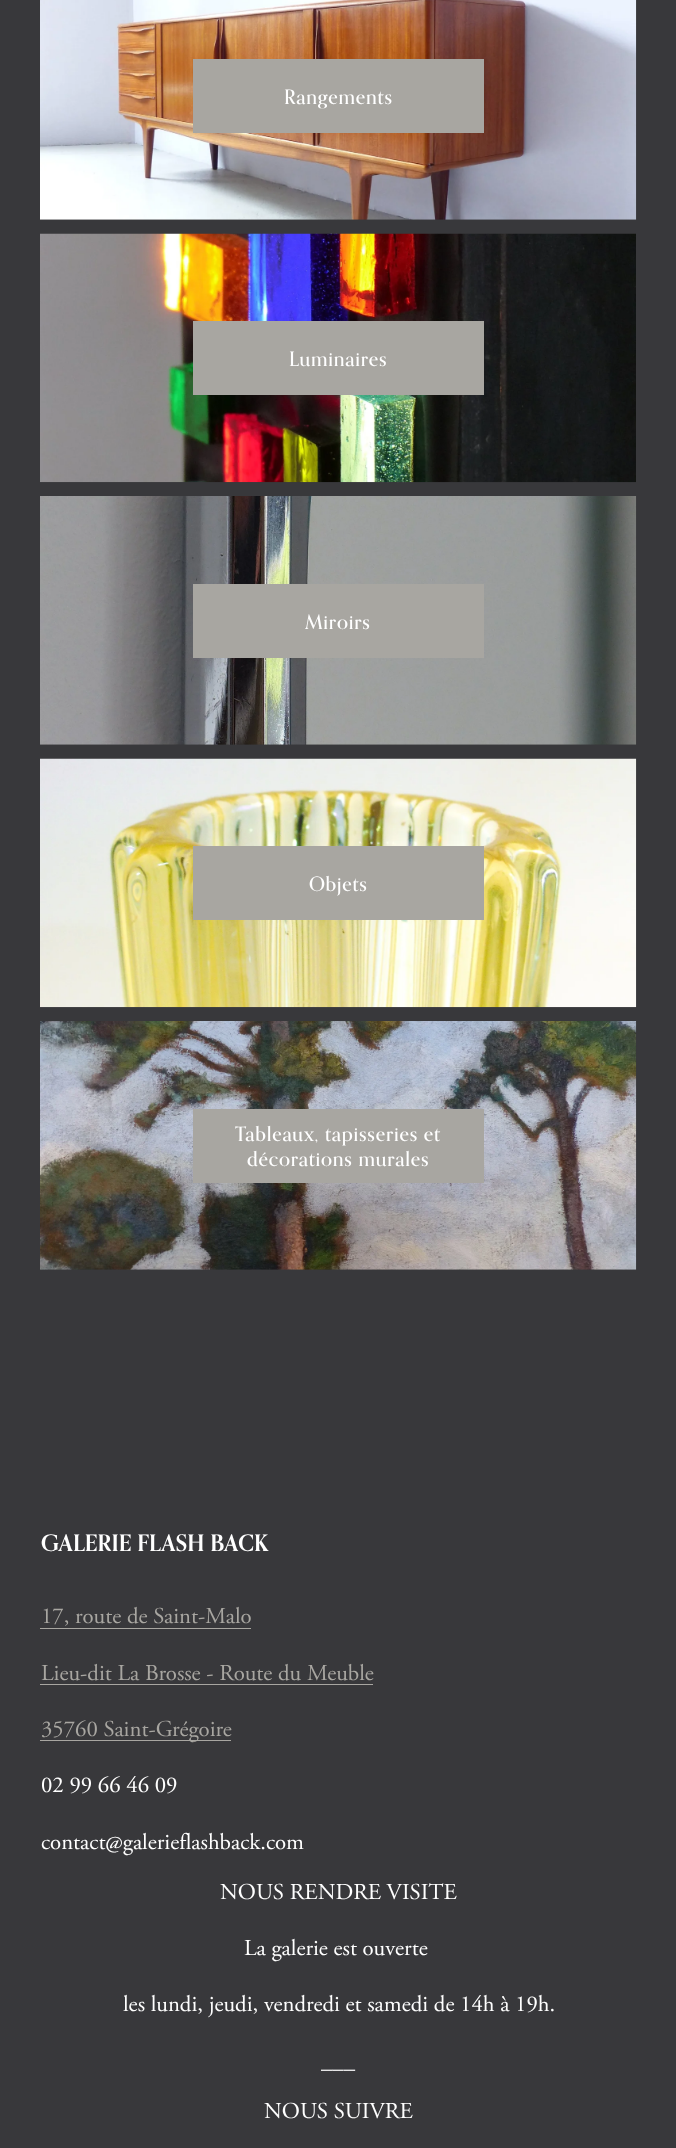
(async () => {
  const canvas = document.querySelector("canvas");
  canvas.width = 676;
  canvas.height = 2148;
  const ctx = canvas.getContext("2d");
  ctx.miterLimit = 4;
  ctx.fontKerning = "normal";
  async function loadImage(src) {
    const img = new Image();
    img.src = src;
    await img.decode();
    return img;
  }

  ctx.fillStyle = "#38383b";
  ctx.fillRect(0, 0, 676, 2148);
  ctx.drawImage(await loadImage("img/1.png"), 40, 0, 597, 220);
  ctx.fillStyle = "#a8a6a1";
  ctx.fillRect(193, 59, 291, 74);
  ctx.drawImage(await loadImage("img/2.png"), 40, 233, 596, 250);
  ctx.fillRect(193, 321, 291, 74);
  ctx.drawImage(await loadImage("img/3.png"), 40, 496, 597, 249);
  ctx.fillRect(193, 584, 291, 74);
  ctx.drawImage(await loadImage("img/4.png"), 40, 758, 597, 250);
  ctx.fillRect(193, 846, 291, 74);
  ctx.drawImage(await loadImage("img/5.png"), 40, 1021, 597, 249);
  for (const [x, y, w, h, color] of [
    [193, 1109, 291, 74, "#a8a6a1"],
    [40, 1628, 211, 1, "#a8a6a1"],
    [40, 1684, 333, 1, "#a8a6a1"],
    [40, 1740, 191, 1, "#a8a6a1"],
  ]) {
    ctx.fillStyle = color;
    ctx.fillRect(x, y, w, h);
  }
  ctx.letterSpacing = "0.8px";
  ctx.font = "500 20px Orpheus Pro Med";
  ctx.fillStyle = "#ffffff";
  for (const [text, x, y] of [
    ["Rangements", 284, 104],
    ["Luminaires", 289, 366],
    ["Miroirs", 305, 629],
    ["Objets", 309, 891],
    ["Tableaux, tapisseries et", 235, 1141],
    ["décorations murales", 247, 1166],
  ]) {
    ctx.fillText(text, x, y);
  }
  ctx.letterSpacing = "0px";
  ctx.font = "bold 22.75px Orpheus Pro";
  ctx.fillText("GALERIE FLASH BACK", 41, 1551);
  ctx.font = "22.75px Adobe Garamond";
  ctx.fillStyle = "#a8a6a1";
  for (const [text, x, y] of [
    ["17, route de Saint-Malo", 41, 1623],
    ["Lieu-dit La Brosse - Route du Meuble", 41, 1680],
    ["35760 Saint-Grégoire", 41, 1736],
  ]) {
    ctx.fillText(text, x, y);
  }
  ctx.fillStyle = "#ffffff";
  for (const [text, x, y] of [
    ["02 99 66 46 09", 41, 1792],
    ["contact@galerieflashback.com", 41, 1849],
    ["NOUS RENDRE VISITE", 220, 1899],
    ["La galerie est ouverte", 244, 1955],
    ["les lundi, jeudi, vendredi et samedi de 14h à 19h.", 123, 2011],
    ["___", 321, 2068],
    ["NOUS SUIVRE", 264, 2118],
  ]) {
    ctx.fillText(text, x, y);
  }
})();
